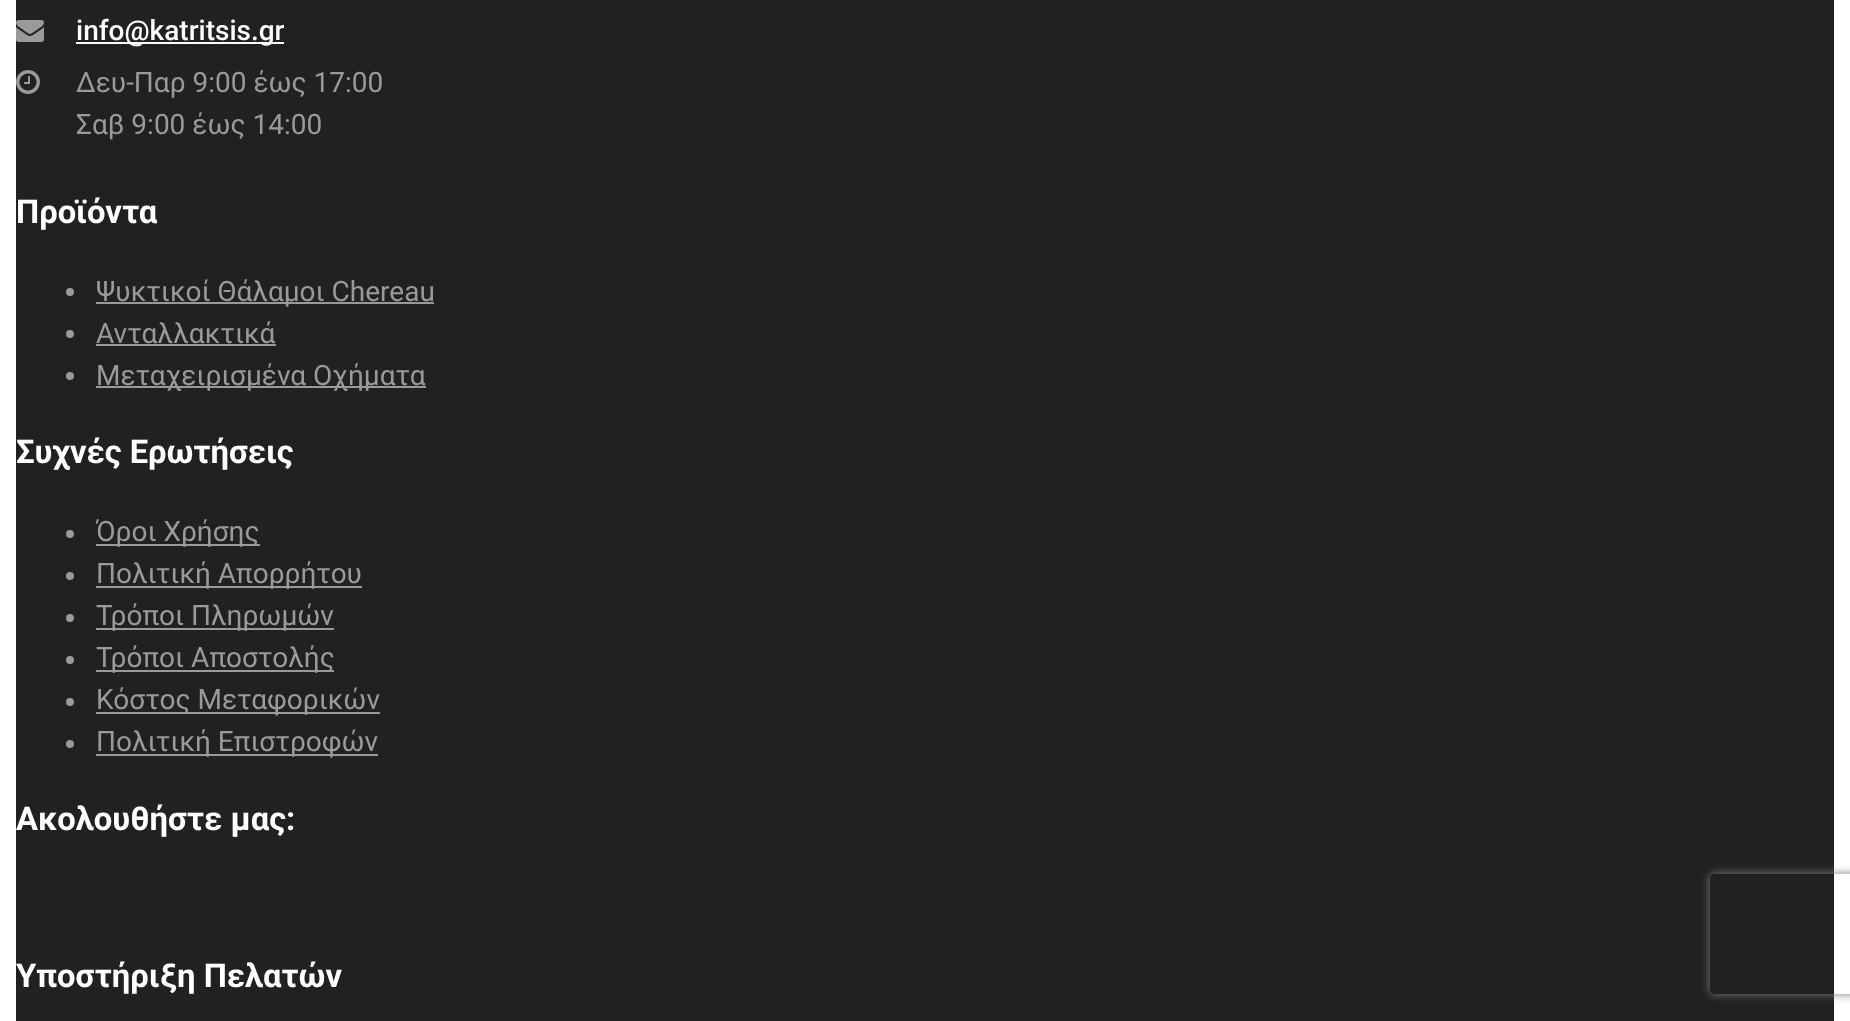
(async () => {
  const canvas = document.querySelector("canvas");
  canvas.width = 1850;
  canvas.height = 1021;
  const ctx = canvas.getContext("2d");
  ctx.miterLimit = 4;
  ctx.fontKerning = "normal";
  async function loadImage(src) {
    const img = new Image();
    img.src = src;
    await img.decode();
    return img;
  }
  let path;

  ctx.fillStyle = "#ffffff";
  ctx.fillRect(0, 0, 1850, 1021);
  ctx.fillStyle = "#212121";
  ctx.fillRect(16, 0, 1818, 1021);
  ctx.drawImage(await loadImage("img/1.png"), 16, 20, 28, 22);
  ctx.fillStyle = "#ffffff";
  ctx.fillRect(76, 42, 208, 2);
  ctx.drawImage(await loadImage("img/2.png"), 16, 70, 24, 24);
  ctx.fillStyle = "#9a9a9a";
  ctx.beginPath();
  ctx.arc(70, 292, 4, 0, Math.PI * 2);
  ctx.fill();
  ctx.fillRect(96, 302, 338, 2);
  ctx.beginPath();
  ctx.arc(70, 334, 4, 0, Math.PI * 2);
  ctx.fill();
  ctx.fillRect(96, 344, 180, 2);
  ctx.beginPath();
  ctx.arc(70, 376, 4, 0, Math.PI * 2);
  ctx.fill();
  ctx.fillRect(96, 386, 330, 2);
  ctx.beginPath();
  ctx.arc(70, 534, 4, 0, Math.PI * 2);
  ctx.fill();
  ctx.fillRect(96, 544, 164, 2);
  ctx.beginPath();
  ctx.arc(70, 576, 4, 0, Math.PI * 2);
  ctx.fill();
  ctx.fillRect(96, 586, 266, 2);
  ctx.beginPath();
  ctx.arc(70, 618, 4, 0, Math.PI * 2);
  ctx.fill();
  ctx.fillRect(96, 628, 238, 2);
  ctx.beginPath();
  ctx.arc(70, 660, 4, 0, Math.PI * 2);
  ctx.fill();
  ctx.fillRect(96, 670, 238, 2);
  ctx.beginPath();
  ctx.arc(70, 702, 4, 0, Math.PI * 2);
  ctx.fill();
  ctx.fillRect(96, 712, 284, 2);
  ctx.beginPath();
  ctx.arc(70, 744, 4, 0, Math.PI * 2);
  ctx.fill();
  ctx.fillRect(96, 754, 282, 2);
  ctx.save();
  path = new Path2D("M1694 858H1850V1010H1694ZM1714 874H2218C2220 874 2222 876 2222 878V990C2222 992 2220 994 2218 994H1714C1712 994 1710 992 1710 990V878C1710 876 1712 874 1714 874Z");
  ctx.clip(path, "evenodd");
  ctx.fillStyle = "#808080";
  ctx.filter = "blur(5px)";
  ctx.beginPath();
  ctx.roundRect(1710, 874, 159, 120, 4);
  ctx.fill();
  ctx.filter = "none";
  ctx.restore();
  ctx.font = "500 28px Roboto";
  ctx.fillStyle = "#ffffff";
  ctx.fillText("info@katritsis.gr", 76, 40);
  ctx.font = "28px Roboto";
  ctx.fillStyle = "#9a9a9a";
  ctx.fillText("Δευ-Παρ 9:00 έως 17:00", 76, 92);
  ctx.fillText("Σαβ 9:00 έως 14:00", 76, 134);
  ctx.font = "bold 32.75px Roboto";
  ctx.fillStyle = "#ffffff";
  ctx.fillText("Προϊόντα", 16, 223);
  ctx.font = "28px Roboto";
  ctx.fillStyle = "#9a9a9a";
  for (const [text, x, y] of [
    ["Ψυκτικοί Θάλαμοι Chereau", 96, 301],
    ["Ανταλλακτικά", 96, 343],
    ["Μεταχειρισμένα Οχήματα", 96, 385],
  ]) {
    ctx.fillText(text, x, y);
  }
  ctx.font = "bold 32.75px Roboto";
  ctx.fillStyle = "#ffffff";
  ctx.fillText("Συχνές Ερωτήσεις", 16, 463);
  ctx.font = "28px Roboto";
  ctx.fillStyle = "#9a9a9a";
  for (const [text, x, y] of [
    ["Όροι Χρήσης", 96, 541],
    ["Πολιτική Απορρήτου", 96, 583],
    ["Τρόποι Πληρωμών", 96, 625],
    ["Τρόποι Αποστολής", 96, 667],
    ["Κόστος Μεταφορικών", 96, 709],
    ["Πολιτική Επιστροφών", 96, 751],
  ]) {
    ctx.fillText(text, x, y);
  }
  ctx.font = "bold 32.75px Roboto";
  ctx.fillStyle = "#ffffff";
  ctx.fillText("Ακολουθήστε μας:", 16, 830);
  ctx.fillText("Υποστήριξη Πελατών", 16, 987);
})();
